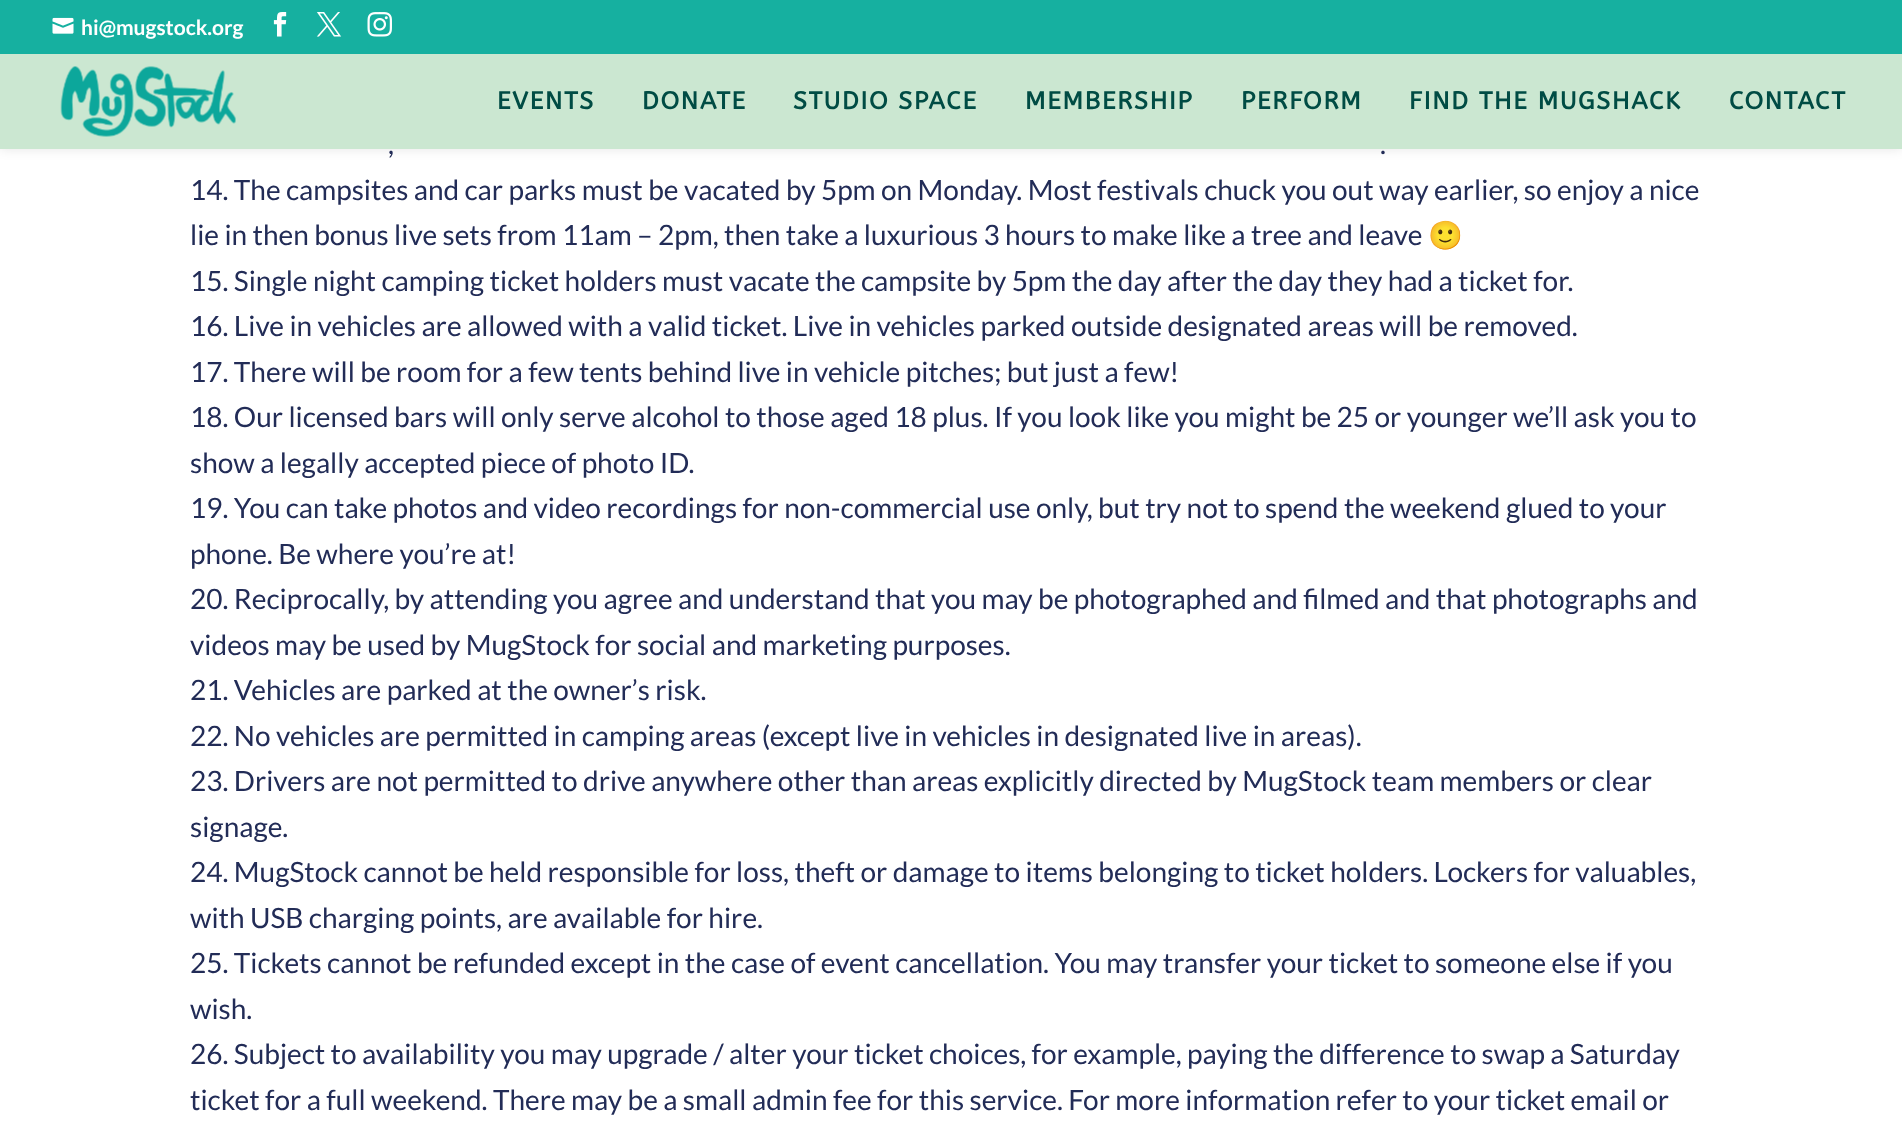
(async () => {
  const canvas = document.querySelector("canvas");
  canvas.width = 1902;
  canvas.height = 1124;
  const ctx = canvas.getContext("2d");
  ctx.miterLimit = 4;
  ctx.fontKerning = "normal";
  async function loadImage(src) {
    const img = new Image();
    img.src = src;
    await img.decode();
    return img;
  }

  ctx.fillStyle = "#ffffff";
  ctx.fillRect(0, 0, 1902, 1124);
  ctx.fillStyle = "rgba(0, 0, 0, 0.1)";
  ctx.filter = "blur(6px)";
  ctx.beginPath();
  ctx.rect(0, 54, 1902, 95);
  ctx.fill();
  ctx.filter = "none";
  ctx.fillStyle = "#16b0a0";
  ctx.fillRect(0, 0, 1902, 54);
  ctx.drawImage(await loadImage("img/1.png"), 52, 17, 22, 17);
  ctx.drawImage(await loadImage("img/2.png"), 273, 12, 14, 25);
  ctx.drawImage(await loadImage("img/3.png"), 316, 12, 26, 25);
  ctx.drawImage(await loadImage("img/4.png"), 367, 12, 25, 25);
  ctx.fillStyle = "#cbe7d1";
  ctx.fillRect(0, 54, 1902, 95);
  ctx.drawImage(await loadImage("img/5.png"), 60, 66, 176, 71);
  ctx.font = "bold 21px Lato";
  ctx.fillStyle = "#ffffff";
  ctx.fillText("hi@mugstock.org", 81, 35);
  ctx.letterSpacing = "1.75px";
  ctx.font = "bold 24.5px ABeeZee";
  ctx.fillStyle = "#004c44";
  for (const [text, x, y] of [
    ["EVENTS", 497, 109],
    ["DONATE", 642, 109],
    ["STUDIO SPACE", 793, 109],
    ["MEMBERSHIP", 1025, 109],
    ["PERFORM", 1241, 109],
    ["FIND THE MUGSHACK", 1409, 109],
    ["CONTACT", 1729, 109],
  ]) {
    ctx.fillText(text, x, y);
  }
  ctx.letterSpacing = "0px";
  ctx.font = "28px Lato";
  ctx.fillStyle = "#222c57";
  for (const [text, x, y] of [
    [",", 388, 154],
    [".", 1380, 154],
    ["14. The campsites and car parks must be vacated by 5pm on Monday. Most festivals chuck you out way earlier, so enjoy a nice", 190, 200],
    ["lie in then bonus live sets from 11am – 2pm, then take a luxurious 3 hours to make like a tree and leave", 190, 245],
  ]) {
    ctx.fillText(text, x, y);
  }
  ctx.font = "28px Noto Color Emoji";
  ctx.fillText("🙂", 1428, 245);
  ctx.font = "28px Lato";
  for (const [text, x, y] of [
    ["15. Single night camping ticket holders must vacate the campsite by 5pm the day after the day they had a ticket for.", 190, 291],
    ["16. Live in vehicles are allowed with a valid ticket. Live in vehicles parked outside designated areas will be removed.", 190, 336],
    ["17. There will be room for a few tents behind live in vehicle pitches; but just a few!", 190, 382],
    ["18. Our licensed bars will only serve alcohol to those aged 18 plus. If you look like you might be 25 or younger we’ll ask you to", 190, 427],
    ["show a legally accepted piece of photo ID.", 190, 473],
    ["19. You can take photos and video recordings for non-commercial use only, but try not to spend the weekend glued to your", 190, 518],
    ["phone. Be where you’re at!", 190, 564],
    ["20. Reciprocally, by attending you agree and understand that you may be photographed and filmed and that photographs and", 190, 609],
    ["videos may be used by MugStock for social and marketing purposes.", 190, 655],
    ["21. Vehicles are parked at the owner’s risk.", 190, 700],
    ["22. No vehicles are permitted in camping areas (except live in vehicles in designated live in areas).", 190, 746],
    ["23. Drivers are not permitted to drive anywhere other than areas explicitly directed by MugStock team members or clear", 190, 791],
    ["signage.", 190, 837],
    ["24. MugStock cannot be held responsible for loss, theft or damage to items belonging to ticket holders. Lockers for valuables,", 190, 882],
    ["with USB charging points, are available for hire.", 190, 928],
    ["25. Tickets cannot be refunded except in the case of event cancellation. You may transfer your ticket to someone else if you", 190, 973],
    ["wish.", 190, 1019],
    ["26. Subject to availability you may upgrade / alter your ticket choices, for example, paying the difference to swap a Saturday", 190, 1064],
    ["ticket for a full weekend. There may be a small admin fee for this service. For more information refer to your ticket email or", 190, 1110],
  ]) {
    ctx.fillText(text, x, y);
  }
})();
